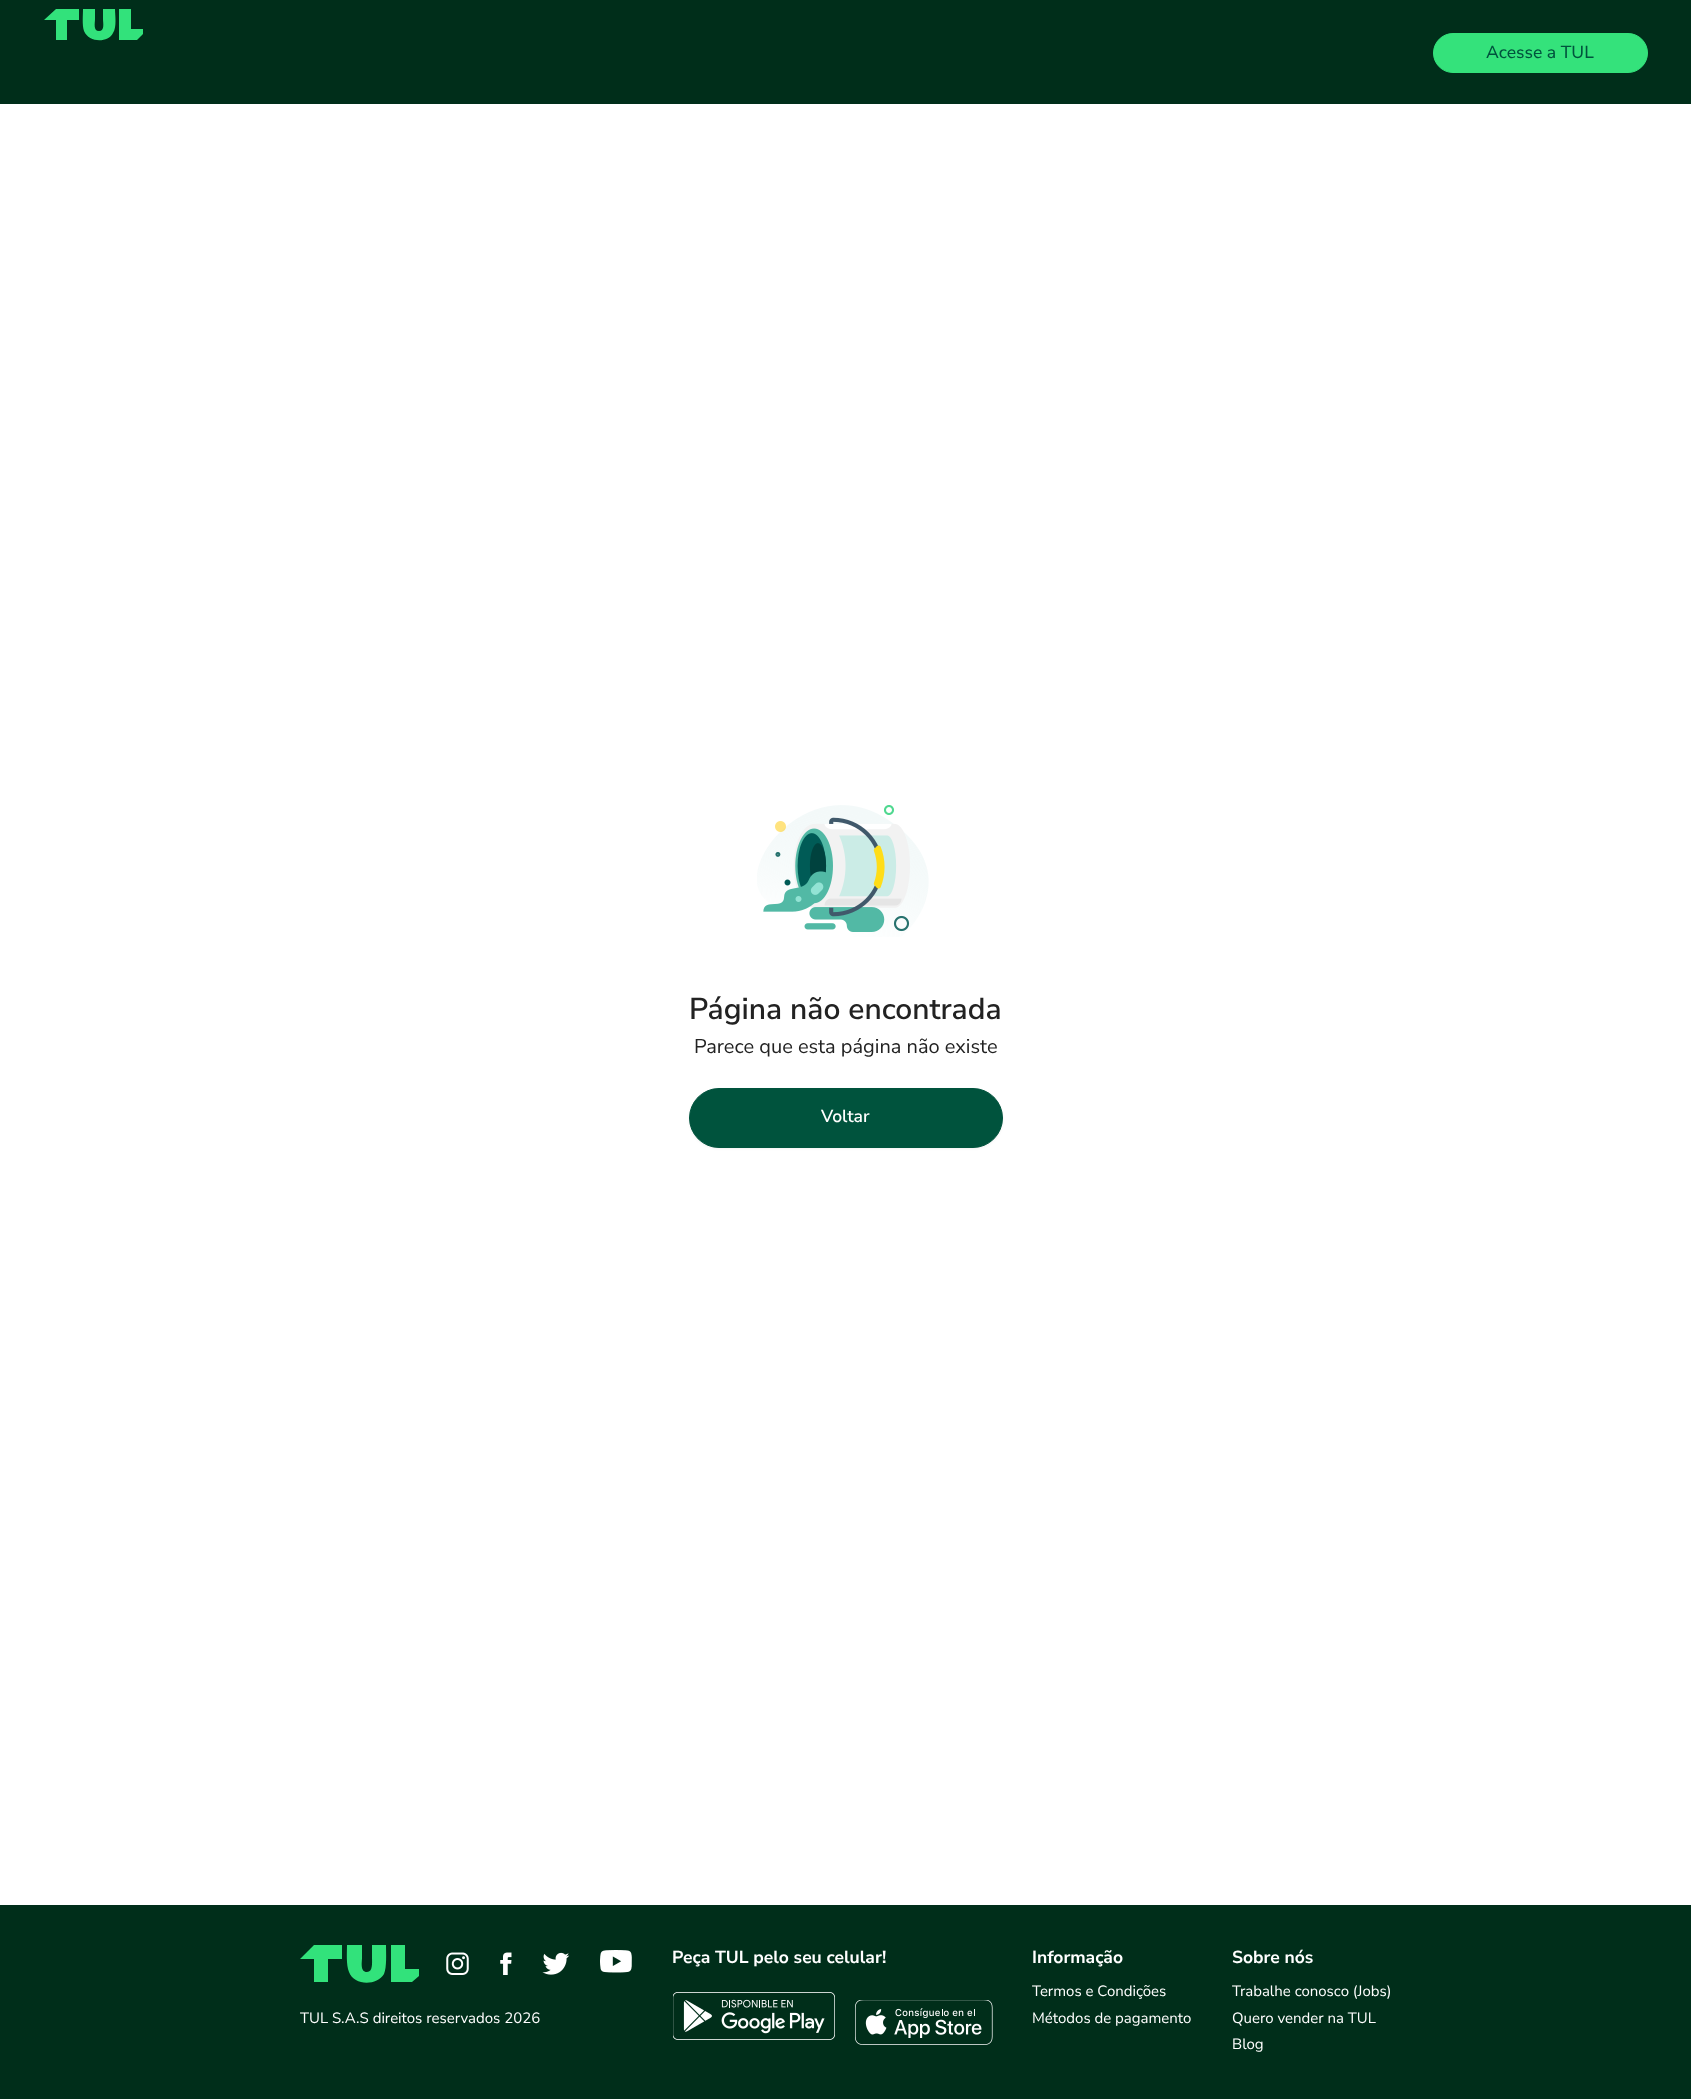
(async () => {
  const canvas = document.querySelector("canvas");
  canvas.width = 1691;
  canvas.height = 2099;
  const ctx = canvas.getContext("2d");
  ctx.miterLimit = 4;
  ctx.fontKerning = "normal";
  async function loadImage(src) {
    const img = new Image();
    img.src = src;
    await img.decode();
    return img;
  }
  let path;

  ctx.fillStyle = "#ffffff";
  ctx.fillRect(0, 0, 1691, 2099);
  ctx.fillStyle = "#002e1a";
  ctx.fillRect(0, 0, 1691, 104);
  ctx.fillStyle = "#32e27b";
  path = new Path2D("M99 31C105 31 103 23 103 19V9H115C115 15 117 27 113 33C108 43 89 43 84 31C82 25 83 15 83 9H95V19C95 23 93 31 99 31ZM79 9H56L44 20H56V40H67V20H79ZM119 9V40H137L143 34V29H131V9Z");
  ctx.fill(path);
  ctx.fillStyle = "#34e27b";
  ctx.beginPath();
  ctx.roundRect(1433.5, 33.5, 214, 39, 19.5);
  ctx.fill();
  ctx.strokeStyle = "#34e27b";
  ctx.stroke();
  ctx.drawImage(await loadImage("img/1.png"), 757, 805, 172, 132);
  ctx.fillStyle = "rgba(0, 0, 0, 0.05)";
  ctx.filter = "blur(1px)";
  ctx.beginPath();
  ctx.roundRect(689, 1089, 314, 60, 30);
  ctx.fill();
  ctx.filter = "none";
  ctx.fillStyle = "#00533d";
  ctx.beginPath();
  ctx.roundRect(689.5, 1088.5, 313, 59, 29.5);
  ctx.fill();
  ctx.strokeStyle = "#00533d";
  ctx.stroke();
  ctx.fillStyle = "#002e1a";
  ctx.fillRect(0, 1905, 1691, 194);
  ctx.fillStyle = "#32e27b";
  path = new Path2D("M367 1972C373 1972 372 1962 372 1958V1945H386C386 1953 387 1967 384 1974C377 1986 354 1986 349 1972C346 1965 347 1952 347 1945H362V1958C362 1962 360 1972 367 1972ZM342 1945H314L300 1959H314V1982H328V1959H342ZM391 1945V1982H412L419 1976V1969H405V1945Z");
  ctx.fill(path);
  ctx.drawImage(await loadImage("img/2.png"), 446, 1952, 23, 23);
  ctx.drawImage(await loadImage("img/3.png"), 500, 1952, 12, 23);
  ctx.drawImage(await loadImage("img/4.png"), 542, 1952, 28, 23);
  ctx.drawImage(await loadImage("img/5.png"), 600, 1950, 32, 23);
  ctx.drawImage(await loadImage("img/6.png"), 673, 1992, 162, 48);
  ctx.drawImage(await loadImage("img/7.png"), 855, 2000, 138, 45);
  ctx.font = "500 17.5px Nunito Sans";
  ctx.fillStyle = "#00533d";
  ctx.fillText("Acesse a TUL", 1486, 58);
  ctx.font = "600 30px Nunito Sans";
  ctx.fillStyle = "#222222";
  ctx.fillText("Página não encontrada", 689, 1019);
  ctx.font = "20px Nunito Sans";
  ctx.fillText("Parece que esta página não existe", 694, 1053);
  ctx.font = "600 17.5px Nunito Sans";
  ctx.fillStyle = "#ffffff";
  ctx.fillText("Voltar", 821, 1122);
  ctx.font = "15px Nunito Sans";
  ctx.fillText("TUL S.A.S direitos reservados 2026", 300, 2023);
  ctx.font = "bold 17.5px Nunito Sans";
  ctx.fillText("Peça TUL pelo seu celular!", 672, 1963);
  ctx.fillText("Informação", 1032, 1963);
  ctx.font = "15px Nunito Sans";
  ctx.fillText("Termos e Condições", 1032, 1996);
  ctx.fillText("Métodos de pagamento", 1032, 2023);
  ctx.font = "bold 17.5px Nunito Sans";
  ctx.fillText("Sobre nós", 1232, 1963);
  ctx.font = "15px Nunito Sans";
  for (const [text, x, y] of [
    ["Trabalhe conosco (Jobs)", 1232, 1996],
    ["Quero vender na TUL", 1232, 2023],
    ["Blog", 1232, 2049],
  ]) {
    ctx.fillText(text, x, y);
  }
})();
